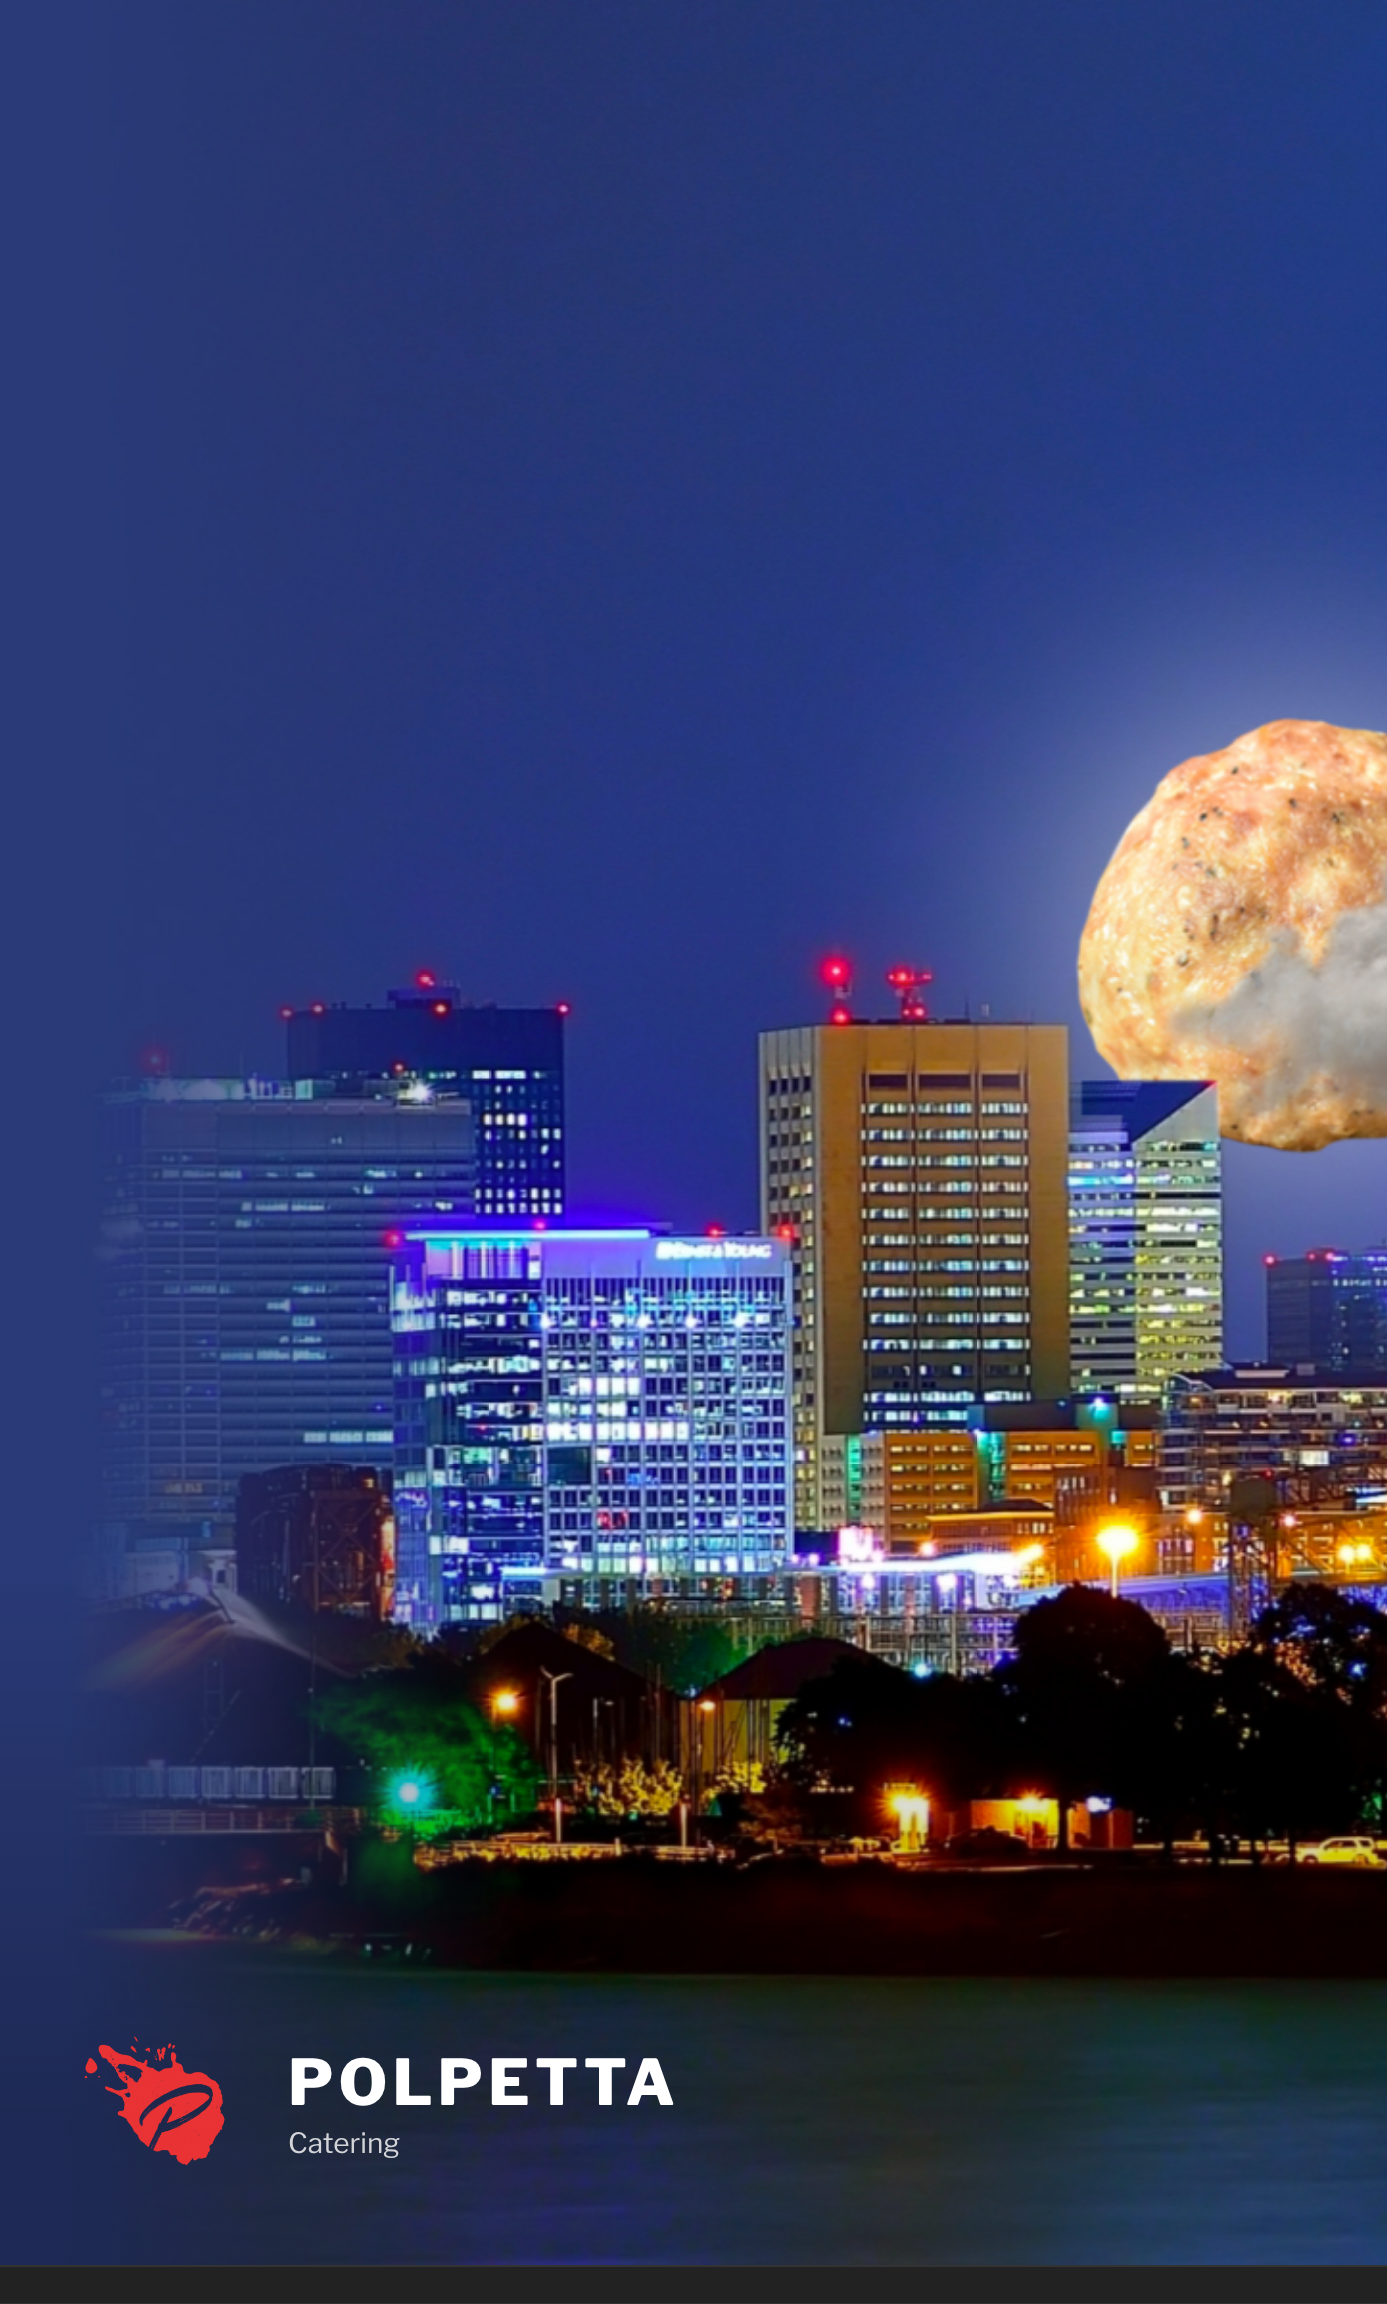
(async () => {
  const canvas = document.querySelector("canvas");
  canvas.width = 1387;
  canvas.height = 2304;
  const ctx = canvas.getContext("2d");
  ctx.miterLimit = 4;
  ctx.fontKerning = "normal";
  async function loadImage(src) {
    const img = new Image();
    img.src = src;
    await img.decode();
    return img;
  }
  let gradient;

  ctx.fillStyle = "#ffffff";
  ctx.fillRect(0, 0, 1387, 2304);
  ctx.drawImage(await loadImage("img/1.png"), 0, 0, 1387, 2265);
  gradient = ctx.createLinearGradient(694, 1544, 694, 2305);
  gradient.addColorStop(0, "rgba(0, 0, 0, 0)");
  gradient.addColorStop(0.75, "rgba(0, 0, 0, 0.3)");
  gradient.addColorStop(1, "rgba(0, 0, 0, 0.3)");
  ctx.fillStyle = gradient;
  ctx.fillRect(0, 1585, 1387, 680);
  ctx.drawImage(await loadImage("img/2.png"), 84, 2036, 141, 130);
  for (const [x, y, w, h, color] of [
    [0, 2267, 1387, 36, "#222222"],
    [0, 2265, 1387, 2, "#333333"],
    [0, 2303, 1387, 1, "#333333"],
  ]) {
    ctx.fillStyle = color;
    ctx.fillRect(x, y, w, h);
  }
  ctx.letterSpacing = "5px";
  ctx.font = "800 63px Libre Franklin";
  ctx.fillStyle = "#ffffff";
  ctx.fillText("POLPETTA", 288, 2105);
  ctx.letterSpacing = "0px";
  ctx.font = "28px Libre Franklin";
  ctx.fillStyle = "#d2d4d8";
  ctx.fillText("Catering", 288, 2153);
})();
